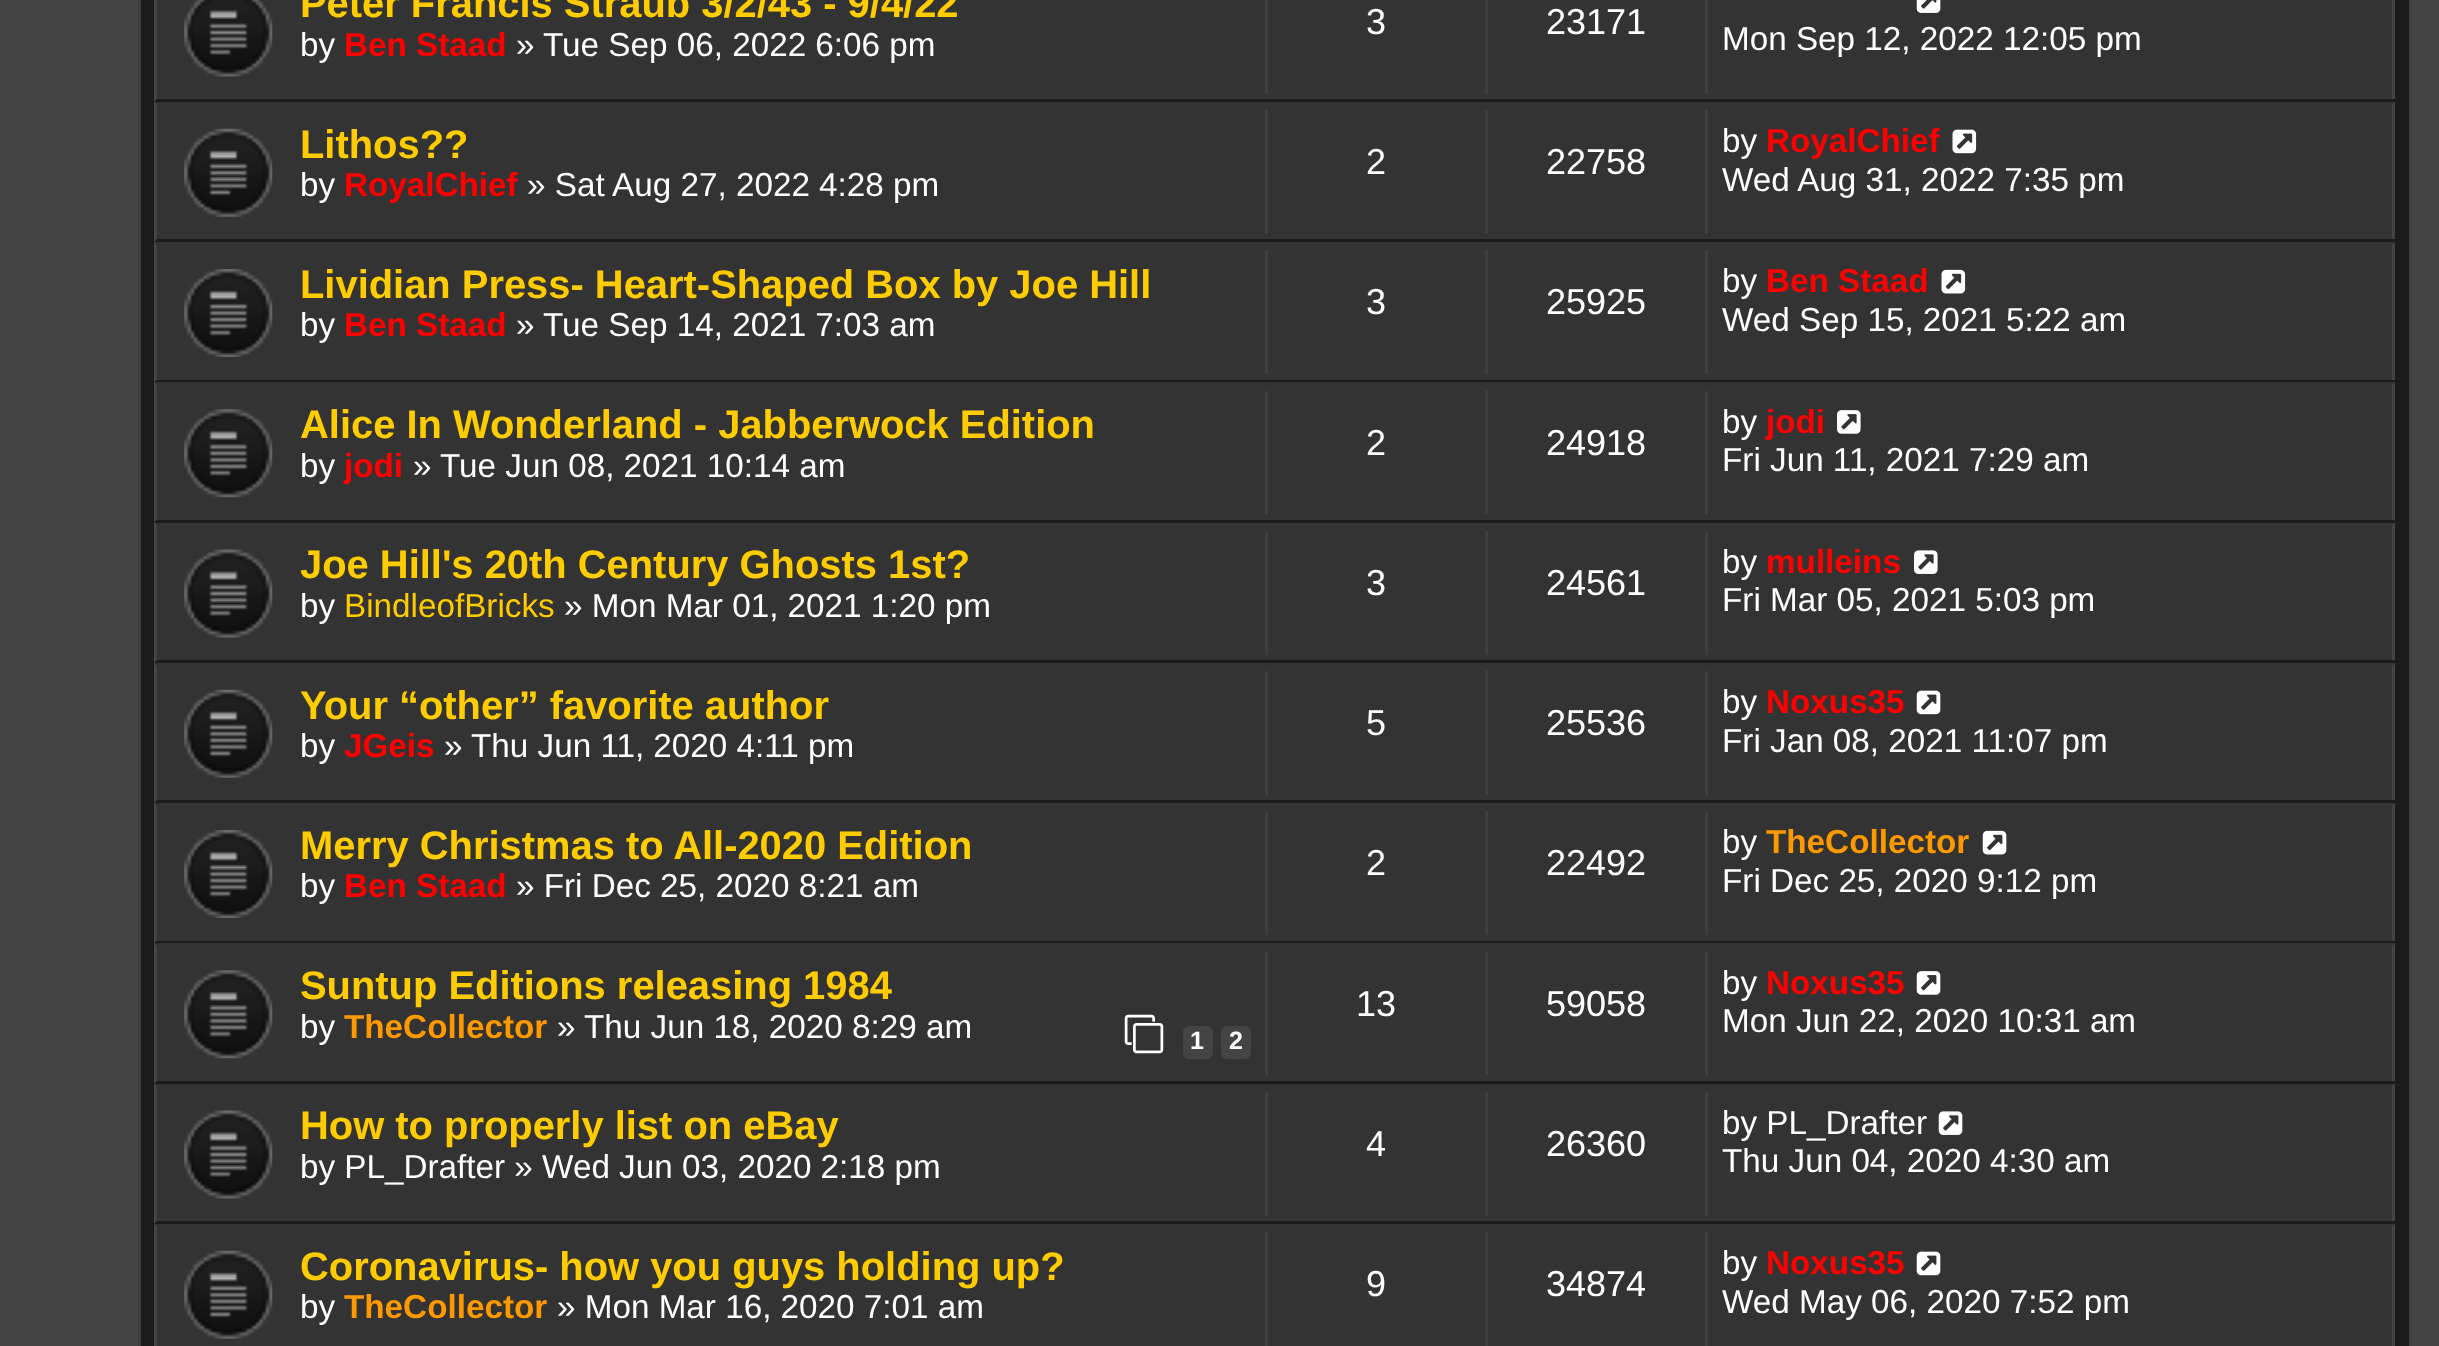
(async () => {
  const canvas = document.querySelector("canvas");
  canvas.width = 2439;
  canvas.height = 1346;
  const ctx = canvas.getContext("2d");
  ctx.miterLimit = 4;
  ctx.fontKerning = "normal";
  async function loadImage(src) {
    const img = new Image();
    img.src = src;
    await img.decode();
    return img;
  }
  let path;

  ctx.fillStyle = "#444444";
  ctx.fillRect(0, 0, 2439, 1346);
  ctx.fillStyle = "#1b1b1b";
  ctx.beginPath();
  ctx.rect(139.5, -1.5, 2271, 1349);
  ctx.fill();
  ctx.strokeStyle = "#3e3e3e";
  ctx.lineWidth = 3;
  ctx.stroke();
  ctx.fillStyle = "#333333";
  ctx.fillRect(157, 0, 2235, 99);
  ctx.fillStyle = "#444444";
  path = new Path2D("M2395-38V102L2392 99V-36Z");
  ctx.fill(path);
  ctx.fillStyle = "#1b1b1b";
  ctx.fillRect(2392, 99, 3, 3);
  ctx.fillStyle = "#444444";
  path = new Path2D("M154 102V-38L157-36V99Z");
  ctx.fill(path);
  ctx.drawImage(await loadImage("img/1.png"), 184, 0, 89, 77);
  for (const [x, y, w, h, color] of [
    [1265, 0, 3, 94, "#3e3e3e"],
    [1485, 0, 3, 94, "#3e3e3e"],
    [1705, 0, 3, 94, "#3e3e3e"],
  ]) {
    ctx.fillStyle = color;
    ctx.fillRect(x, y, w, h);
  }
  ctx.drawImage(await loadImage("img/2.png"), 1916, 0, 25, 13);
  ctx.fillStyle = "#333333";
  ctx.fillRect(154, 102, 2241, 137);
  ctx.fillStyle = "#444444";
  path = new Path2D("M2395 102V242L2392 239V104Z");
  ctx.fill(path);
  ctx.fillStyle = "#1b1b1b";
  ctx.fillRect(2392, 239, 3, 3);
  ctx.fillStyle = "#444444";
  path = new Path2D("M154 242V102L157 104V239Z");
  ctx.fill(path);
  ctx.drawImage(await loadImage("img/3.png"), 184, 128, 89, 89);
  for (const [x, y, w, h, color] of [
    [1265, 110, 3, 124, "#3e3e3e"],
    [1485, 110, 3, 124, "#3e3e3e"],
    [1705, 110, 3, 124, "#3e3e3e"],
  ]) {
    ctx.fillStyle = color;
    ctx.fillRect(x, y, w, h);
  }
  ctx.drawImage(await loadImage("img/4.png"), 1952, 129, 25, 25);
  ctx.fillStyle = "#333333";
  ctx.fillRect(154, 242, 2241, 138);
  ctx.fillStyle = "#444444";
  path = new Path2D("M2395 242V382L2392 380V245Z");
  ctx.fill(path);
  ctx.fillStyle = "#1b1b1b";
  ctx.fillRect(2392, 380, 3, 2);
  ctx.fillStyle = "#444444";
  path = new Path2D("M154 382V242L157 245V380Z");
  ctx.fill(path);
  ctx.drawImage(await loadImage("img/5.png"), 184, 269, 89, 88);
  for (const [x, y, w, h, color] of [
    [1265, 250, 3, 124, "#3e3e3e"],
    [1485, 250, 3, 124, "#3e3e3e"],
    [1705, 250, 3, 124, "#3e3e3e"],
  ]) {
    ctx.fillStyle = color;
    ctx.fillRect(x, y, w, h);
  }
  ctx.drawImage(await loadImage("img/6.png"), 1941, 269, 25, 25);
  ctx.fillStyle = "#333333";
  ctx.fillRect(154, 382, 2241, 138);
  ctx.fillStyle = "#444444";
  path = new Path2D("M2395 382V522L2392 520V385Z");
  ctx.fill(path);
  ctx.fillStyle = "#1b1b1b";
  ctx.fillRect(2392, 520, 3, 2);
  ctx.fillStyle = "#444444";
  path = new Path2D("M154 522V382L157 385V520Z");
  ctx.fill(path);
  ctx.drawImage(await loadImage("img/7.png"), 184, 409, 89, 89);
  for (const [x, y, w, h, color] of [
    [1265, 391, 3, 123, "#3e3e3e"],
    [1485, 391, 3, 123, "#3e3e3e"],
    [1705, 391, 3, 123, "#3e3e3e"],
  ]) {
    ctx.fillStyle = color;
    ctx.fillRect(x, y, w, h);
  }
  ctx.drawImage(await loadImage("img/8.png"), 1837, 410, 24, 24);
  ctx.fillStyle = "#333333";
  ctx.fillRect(155, 523, 2239, 137);
  ctx.fillStyle = "#444444";
  path = new Path2D("M2395 522V663L2392 660V525Z");
  ctx.fill(path);
  ctx.fillStyle = "#1b1b1b";
  ctx.fillRect(2392, 660, 3, 3);
  ctx.fillStyle = "#444444";
  path = new Path2D("M154 663V522L157 525V660Z");
  ctx.fill(path);
  ctx.drawImage(await loadImage("img/9.png"), 184, 549, 89, 89);
  for (const [x, y, w, h, color] of [
    [1265, 531, 3, 124, "#3e3e3e"],
    [1485, 531, 3, 124, "#3e3e3e"],
    [1705, 531, 3, 124, "#3e3e3e"],
  ]) {
    ctx.fillStyle = color;
    ctx.fillRect(x, y, w, h);
  }
  ctx.drawImage(await loadImage("img/10.png"), 1914, 550, 24, 24);
  ctx.fillStyle = "#333333";
  ctx.fillRect(154, 663, 2241, 137);
  ctx.fillStyle = "#444444";
  path = new Path2D("M2395 663V803L2392 800V666Z");
  ctx.fill(path);
  ctx.fillStyle = "#1b1b1b";
  ctx.fillRect(2392, 800, 3, 3);
  ctx.fillStyle = "#444444";
  path = new Path2D("M154 803V663L157 666V800Z");
  ctx.fill(path);
  ctx.drawImage(await loadImage("img/3.png"), 184, 689, 89, 89);
  for (const [x, y, w, h, color] of [
    [1265, 671, 3, 124, "#3e3e3e"],
    [1485, 671, 3, 124, "#3e3e3e"],
    [1705, 671, 3, 124, "#3e3e3e"],
  ]) {
    ctx.fillStyle = color;
    ctx.fillRect(x, y, w, h);
  }
  ctx.drawImage(await loadImage("img/11.png"), 1916, 690, 25, 25);
  ctx.fillStyle = "#333333";
  ctx.fillRect(154, 803, 2241, 138);
  ctx.fillStyle = "#444444";
  path = new Path2D("M2395 803V943L2392 940V806Z");
  ctx.fill(path);
  ctx.fillStyle = "#1b1b1b";
  ctx.fillRect(2393, 941, 2, 2);
  ctx.fillStyle = "#444444";
  path = new Path2D("M154 943V803L157 806V940Z");
  ctx.fill(path);
  ctx.drawImage(await loadImage("img/5.png"), 184, 830, 89, 88);
  for (const [x, y, w, h, color] of [
    [1265, 811, 3, 124, "#3e3e3e"],
    [1485, 811, 3, 124, "#3e3e3e"],
    [1705, 811, 3, 124, "#3e3e3e"],
  ]) {
    ctx.fillStyle = color;
    ctx.fillRect(x, y, w, h);
  }
  ctx.drawImage(await loadImage("img/12.png"), 1982, 830, 25, 25);
  ctx.fillStyle = "#333333";
  ctx.fillRect(154, 943, 2241, 138);
  ctx.fillStyle = "#444444";
  path = new Path2D("M2395 943V1084L2392 1081V946Z");
  ctx.fill(path);
  ctx.fillStyle = "#1b1b1b";
  ctx.fillRect(2392, 1081, 3, 3);
  ctx.fillStyle = "#444444";
  path = new Path2D("M154 1084V943L157 946V1081Z");
  ctx.fill(path);
  ctx.drawImage(await loadImage("img/7.png"), 184, 970, 89, 89);
  ctx.drawImage(await loadImage("img/13.png"), 1124, 1014, 40, 40);
  ctx.beginPath();
  ctx.roundRect(1183, 1026, 30, 33, 6);
  ctx.fill();
  ctx.beginPath();
  ctx.roundRect(1221, 1026, 30, 33, 6);
  ctx.fill();
  for (const [x, y, w, h, color] of [
    [1265, 952, 3, 123, "#3e3e3e"],
    [1485, 952, 3, 123, "#3e3e3e"],
    [1705, 952, 3, 123, "#3e3e3e"],
  ]) {
    ctx.fillStyle = color;
    ctx.fillRect(x, y, w, h);
  }
  ctx.drawImage(await loadImage("img/14.png"), 1916, 971, 25, 24);
  ctx.fillStyle = "#333333";
  ctx.fillRect(154, 1084, 2241, 137);
  ctx.fillStyle = "#444444";
  path = new Path2D("M2395 1084V1224L2392 1221V1086Z");
  ctx.fill(path);
  ctx.fillStyle = "#1b1b1b";
  ctx.fillRect(2392, 1221, 3, 3);
  ctx.fillStyle = "#444444";
  path = new Path2D("M154 1224V1084L157 1086V1221Z");
  ctx.fill(path);
  ctx.drawImage(await loadImage("img/9.png"), 184, 1110, 89, 89);
  for (const [x, y, w, h, color] of [
    [1265, 1092, 3, 124, "#3e3e3e"],
    [1485, 1092, 3, 124, "#3e3e3e"],
    [1705, 1092, 3, 124, "#3e3e3e"],
  ]) {
    ctx.fillStyle = color;
    ctx.fillRect(x, y, w, h);
  }
  ctx.drawImage(await loadImage("img/15.png"), 1938, 1111, 25, 24);
  ctx.fillStyle = "#333333";
  ctx.fillRect(154, 1224, 2241, 122);
  ctx.fillStyle = "#444444";
  path = new Path2D("M2395 1224V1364L2392 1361V1226Z");
  ctx.fill(path);
  path = new Path2D("M154 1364V1224L157 1226V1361Z");
  ctx.fill(path);
  ctx.drawImage(await loadImage("img/3.png"), 184, 1250, 89, 89);
  for (const [x, y, w, h, color] of [
    [1265, 1232, 3, 114, "#3e3e3e"],
    [1485, 1232, 3, 114, "#3e3e3e"],
    [1705, 1232, 3, 114, "#3e3e3e"],
  ]) {
    ctx.fillStyle = color;
    ctx.fillRect(x, y, w, h);
  }
  ctx.drawImage(await loadImage("img/11.png"), 1916, 1251, 25, 25);
  ctx.font = "bold 39.9px Liberation Sans";
  ctx.fillStyle = "#ffcc00";
  ctx.fillText("Peter Francis Straub 3/2/43 - 9/4/22", 300, 17);
  ctx.font = "33.25px Liberation Sans";
  ctx.fillStyle = "#ffffff";
  ctx.fillText("by", 300, 56);
  ctx.font = "bold 33.25px Liberation Sans";
  ctx.fillStyle = "#ff0000";
  ctx.fillText("Ben Staad", 344, 56);
  ctx.font = "33.25px Liberation Sans";
  ctx.fillStyle = "#ffffff";
  ctx.fillText("»", 516, 56);
  ctx.fillText("Tue Sep 06, 2022 6:06 pm", 543, 56);
  ctx.font = "36px Liberation Sans";
  ctx.fillText("3", 1366, 34);
  ctx.fillText("23171", 1546, 34);
  ctx.font = "33.25px Liberation Sans";
  ctx.fillText("Mon Sep 12, 2022 12:05 pm", 1722, 50);
  ctx.font = "bold 39.9px Liberation Sans";
  ctx.fillStyle = "#ffcc00";
  ctx.fillText("Lithos??", 300, 158);
  ctx.font = "33.25px Liberation Sans";
  ctx.fillStyle = "#ffffff";
  ctx.fillText("by", 300, 196);
  ctx.font = "bold 33.25px Liberation Sans";
  ctx.fillStyle = "#ff0000";
  ctx.fillText("RoyalChief", 344, 196);
  ctx.font = "33.25px Liberation Sans";
  ctx.fillStyle = "#ffffff";
  ctx.fillText("» Sat Aug 27, 2022 4:28 pm", 527, 196);
  ctx.font = "36px Liberation Sans";
  ctx.fillText("2", 1366, 174);
  ctx.fillText("22758", 1546, 174);
  ctx.font = "33.25px Liberation Sans";
  ctx.fillText("by", 1722, 152);
  ctx.font = "bold 33.25px Liberation Sans";
  ctx.fillStyle = "#ff0000";
  ctx.fillText("RoyalChief", 1766, 152);
  ctx.font = "33.25px Liberation Sans";
  ctx.fillStyle = "#ffffff";
  ctx.fillText("Wed Aug 31, 2022 7:35 pm", 1722, 191);
  ctx.font = "bold 39.9px Liberation Sans";
  ctx.fillStyle = "#ffcc00";
  ctx.fillText("Lividian Press- Heart-Shaped Box by Joe Hill", 300, 298);
  ctx.font = "33.25px Liberation Sans";
  ctx.fillStyle = "#ffffff";
  ctx.fillText("by", 300, 336);
  ctx.font = "bold 33.25px Liberation Sans";
  ctx.fillStyle = "#ff0000";
  ctx.fillText("Ben Staad", 344, 336);
  ctx.font = "33.25px Liberation Sans";
  ctx.fillStyle = "#ffffff";
  ctx.fillText("»", 516, 336);
  ctx.fillText("Tue Sep 14, 2021 7:03 am", 543, 336);
  ctx.font = "36px Liberation Sans";
  ctx.fillText("3", 1366, 314);
  ctx.fillText("25925", 1546, 314);
  ctx.font = "33.25px Liberation Sans";
  ctx.fillText("by", 1722, 292);
  ctx.font = "bold 33.25px Liberation Sans";
  ctx.fillStyle = "#ff0000";
  ctx.fillText("Ben Staad", 1766, 292);
  ctx.font = "33.25px Liberation Sans";
  ctx.fillStyle = "#ffffff";
  ctx.fillText("Wed Sep 15, 2021 5:22 am", 1722, 331);
  ctx.font = "bold 39.9px Liberation Sans";
  ctx.fillStyle = "#ffcc00";
  ctx.fillText("Alice In Wonderland - Jabberwock Edition", 300, 438);
  ctx.font = "33.25px Liberation Sans";
  ctx.fillStyle = "#ffffff";
  ctx.fillText("by", 300, 477);
  ctx.font = "bold 33.25px Liberation Sans";
  ctx.fillStyle = "#ff0000";
  ctx.fillText("jodi", 344, 477);
  ctx.font = "33.25px Liberation Sans";
  ctx.fillStyle = "#ffffff";
  ctx.fillText("»", 413, 477);
  ctx.fillText("Tue Jun 08, 2021 10:14 am", 440, 477);
  ctx.font = "36px Liberation Sans";
  ctx.fillText("2", 1366, 455);
  ctx.fillText("24918", 1546, 455);
  ctx.font = "33.25px Liberation Sans";
  ctx.fillText("by", 1722, 433);
  ctx.font = "bold 33.25px Liberation Sans";
  ctx.fillStyle = "#ff0000";
  ctx.fillText("jodi", 1766, 433);
  ctx.font = "33.25px Liberation Sans";
  ctx.fillStyle = "#ffffff";
  ctx.fillText("Fri Jun 11, 2021 7:29 am", 1722, 471);
  ctx.font = "bold 39.9px Liberation Sans";
  ctx.fillStyle = "#ffcc00";
  ctx.fillText("Joe Hill's 20th Century Ghosts 1st?", 300, 578);
  ctx.font = "33.25px Liberation Sans";
  ctx.fillStyle = "#ffffff";
  ctx.fillText("by", 300, 617);
  ctx.fillStyle = "#ffcc00";
  ctx.fillText("BindleofBricks", 344, 617);
  ctx.fillStyle = "#ffffff";
  ctx.fillText("» Mon Mar 01, 2021 1:20 pm", 564, 617);
  ctx.font = "36px Liberation Sans";
  ctx.fillText("3", 1366, 595);
  ctx.fillText("24561", 1546, 595);
  ctx.font = "33.25px Liberation Sans";
  ctx.fillText("by", 1722, 573);
  ctx.font = "bold 33.25px Liberation Sans";
  ctx.fillStyle = "#ff0000";
  ctx.fillText("mulleins", 1766, 573);
  ctx.font = "33.25px Liberation Sans";
  ctx.fillStyle = "#ffffff";
  ctx.fillText("Fri Mar 05, 2021 5:03 pm", 1722, 611);
  ctx.font = "bold 39.9px Liberation Sans";
  ctx.fillStyle = "#ffcc00";
  ctx.fillText("Your “other” favorite author", 300, 719);
  ctx.font = "33.25px Liberation Sans";
  ctx.fillStyle = "#ffffff";
  ctx.fillText("by", 300, 757);
  ctx.font = "bold 33.25px Liberation Sans";
  ctx.fillStyle = "#ff0000";
  ctx.fillText("JGeis", 344, 757);
  ctx.font = "33.25px Liberation Sans";
  ctx.fillStyle = "#ffffff";
  ctx.fillText("»", 444, 757);
  ctx.fillText("Thu Jun 11, 2020 4:11 pm", 471, 757);
  ctx.font = "36px Liberation Sans";
  ctx.fillText("5", 1366, 735);
  ctx.fillText("25536", 1546, 735);
  ctx.font = "33.25px Liberation Sans";
  ctx.fillText("by", 1722, 713);
  ctx.font = "bold 33.25px Liberation Sans";
  ctx.fillStyle = "#ff0000";
  ctx.fillText("Noxus35", 1766, 713);
  ctx.font = "33.25px Liberation Sans";
  ctx.fillStyle = "#ffffff";
  ctx.fillText("Fri Jan 08, 2021 11:07 pm", 1722, 752);
  ctx.font = "bold 39.9px Liberation Sans";
  ctx.fillStyle = "#ffcc00";
  ctx.fillText("Merry Christmas to All-2020 Edition", 300, 859);
  ctx.font = "33.25px Liberation Sans";
  ctx.fillStyle = "#ffffff";
  ctx.fillText("by", 300, 897);
  ctx.font = "bold 33.25px Liberation Sans";
  ctx.fillStyle = "#ff0000";
  ctx.fillText("Ben Staad", 344, 897);
  ctx.font = "33.25px Liberation Sans";
  ctx.fillStyle = "#ffffff";
  ctx.fillText("» Fri Dec 25, 2020 8:21 am", 516, 897);
  ctx.font = "36px Liberation Sans";
  ctx.fillText("2", 1366, 875);
  ctx.fillText("22492", 1546, 875);
  ctx.font = "33.25px Liberation Sans";
  ctx.fillText("by", 1722, 853);
  ctx.font = "bold 33.25px Liberation Sans";
  ctx.fillStyle = "#ff9900";
  ctx.fillText("TheCollector", 1766, 853);
  ctx.font = "33.25px Liberation Sans";
  ctx.fillStyle = "#ffffff";
  ctx.fillText("Fri Dec 25, 2020 9:12 pm", 1722, 892);
  ctx.font = "bold 39.9px Liberation Sans";
  ctx.fillStyle = "#ffcc00";
  ctx.fillText("Suntup Editions releasing 1984", 300, 999);
  ctx.font = "33.25px Liberation Sans";
  ctx.fillStyle = "#ffffff";
  ctx.fillText("by", 300, 1038);
  ctx.font = "bold 33.25px Liberation Sans";
  ctx.fillStyle = "#ff9900";
  ctx.fillText("TheCollector", 344, 1038);
  ctx.font = "33.25px Liberation Sans";
  ctx.fillStyle = "#ffffff";
  ctx.fillText("»", 557, 1038);
  ctx.fillText("Thu Jun 18, 2020 8:29 am", 584, 1038);
  ctx.font = "bold 25px Liberation Sans";
  ctx.fillText("1", 1190, 1049);
  ctx.fillText("2", 1229, 1049);
  ctx.font = "36px Liberation Sans";
  ctx.fillText("13", 1356, 1016);
  ctx.fillText("59058", 1546, 1016);
  ctx.font = "33.25px Liberation Sans";
  ctx.fillText("by", 1722, 994);
  ctx.font = "bold 33.25px Liberation Sans";
  ctx.fillStyle = "#ff0000";
  ctx.fillText("Noxus35", 1766, 994);
  ctx.font = "33.25px Liberation Sans";
  ctx.fillStyle = "#ffffff";
  ctx.fillText("Mon Jun 22, 2020 10:31 am", 1722, 1032);
  ctx.font = "bold 39.9px Liberation Sans";
  ctx.fillStyle = "#ffcc00";
  ctx.fillText("How to properly list on eBay", 300, 1139);
  ctx.font = "33.25px Liberation Sans";
  ctx.fillStyle = "#ffffff";
  ctx.fillText("by PL_Drafter » Wed Jun 03, 2020 2:18 pm", 300, 1178);
  ctx.font = "36px Liberation Sans";
  ctx.fillText("4", 1366, 1156);
  ctx.fillText("26360", 1546, 1156);
  ctx.font = "33.25px Liberation Sans";
  ctx.fillText("by PL_Drafter", 1722, 1134);
  ctx.fillText("Thu Jun 04, 2020 4:30 am", 1722, 1172);
  ctx.font = "bold 39.9px Liberation Sans";
  ctx.fillStyle = "#ffcc00";
  ctx.fillText("Coronavirus- how you guys holding up?", 300, 1280);
  ctx.font = "33.25px Liberation Sans";
  ctx.fillStyle = "#ffffff";
  ctx.fillText("by", 300, 1318);
  ctx.font = "bold 33.25px Liberation Sans";
  ctx.fillStyle = "#ff9900";
  ctx.fillText("TheCollector", 344, 1318);
  ctx.font = "33.25px Liberation Sans";
  ctx.fillStyle = "#ffffff";
  ctx.fillText("» Mon Mar 16, 2020 7:01 am", 557, 1318);
  ctx.font = "36px Liberation Sans";
  ctx.fillText("9", 1366, 1296);
  ctx.fillText("34874", 1546, 1296);
  ctx.font = "33.25px Liberation Sans";
  ctx.fillText("by", 1722, 1274);
  ctx.font = "bold 33.25px Liberation Sans";
  ctx.fillStyle = "#ff0000";
  ctx.fillText("Noxus35", 1766, 1274);
  ctx.font = "33.25px Liberation Sans";
  ctx.fillStyle = "#ffffff";
  ctx.fillText("Wed May 06, 2020 7:52 pm", 1722, 1313);
})();
